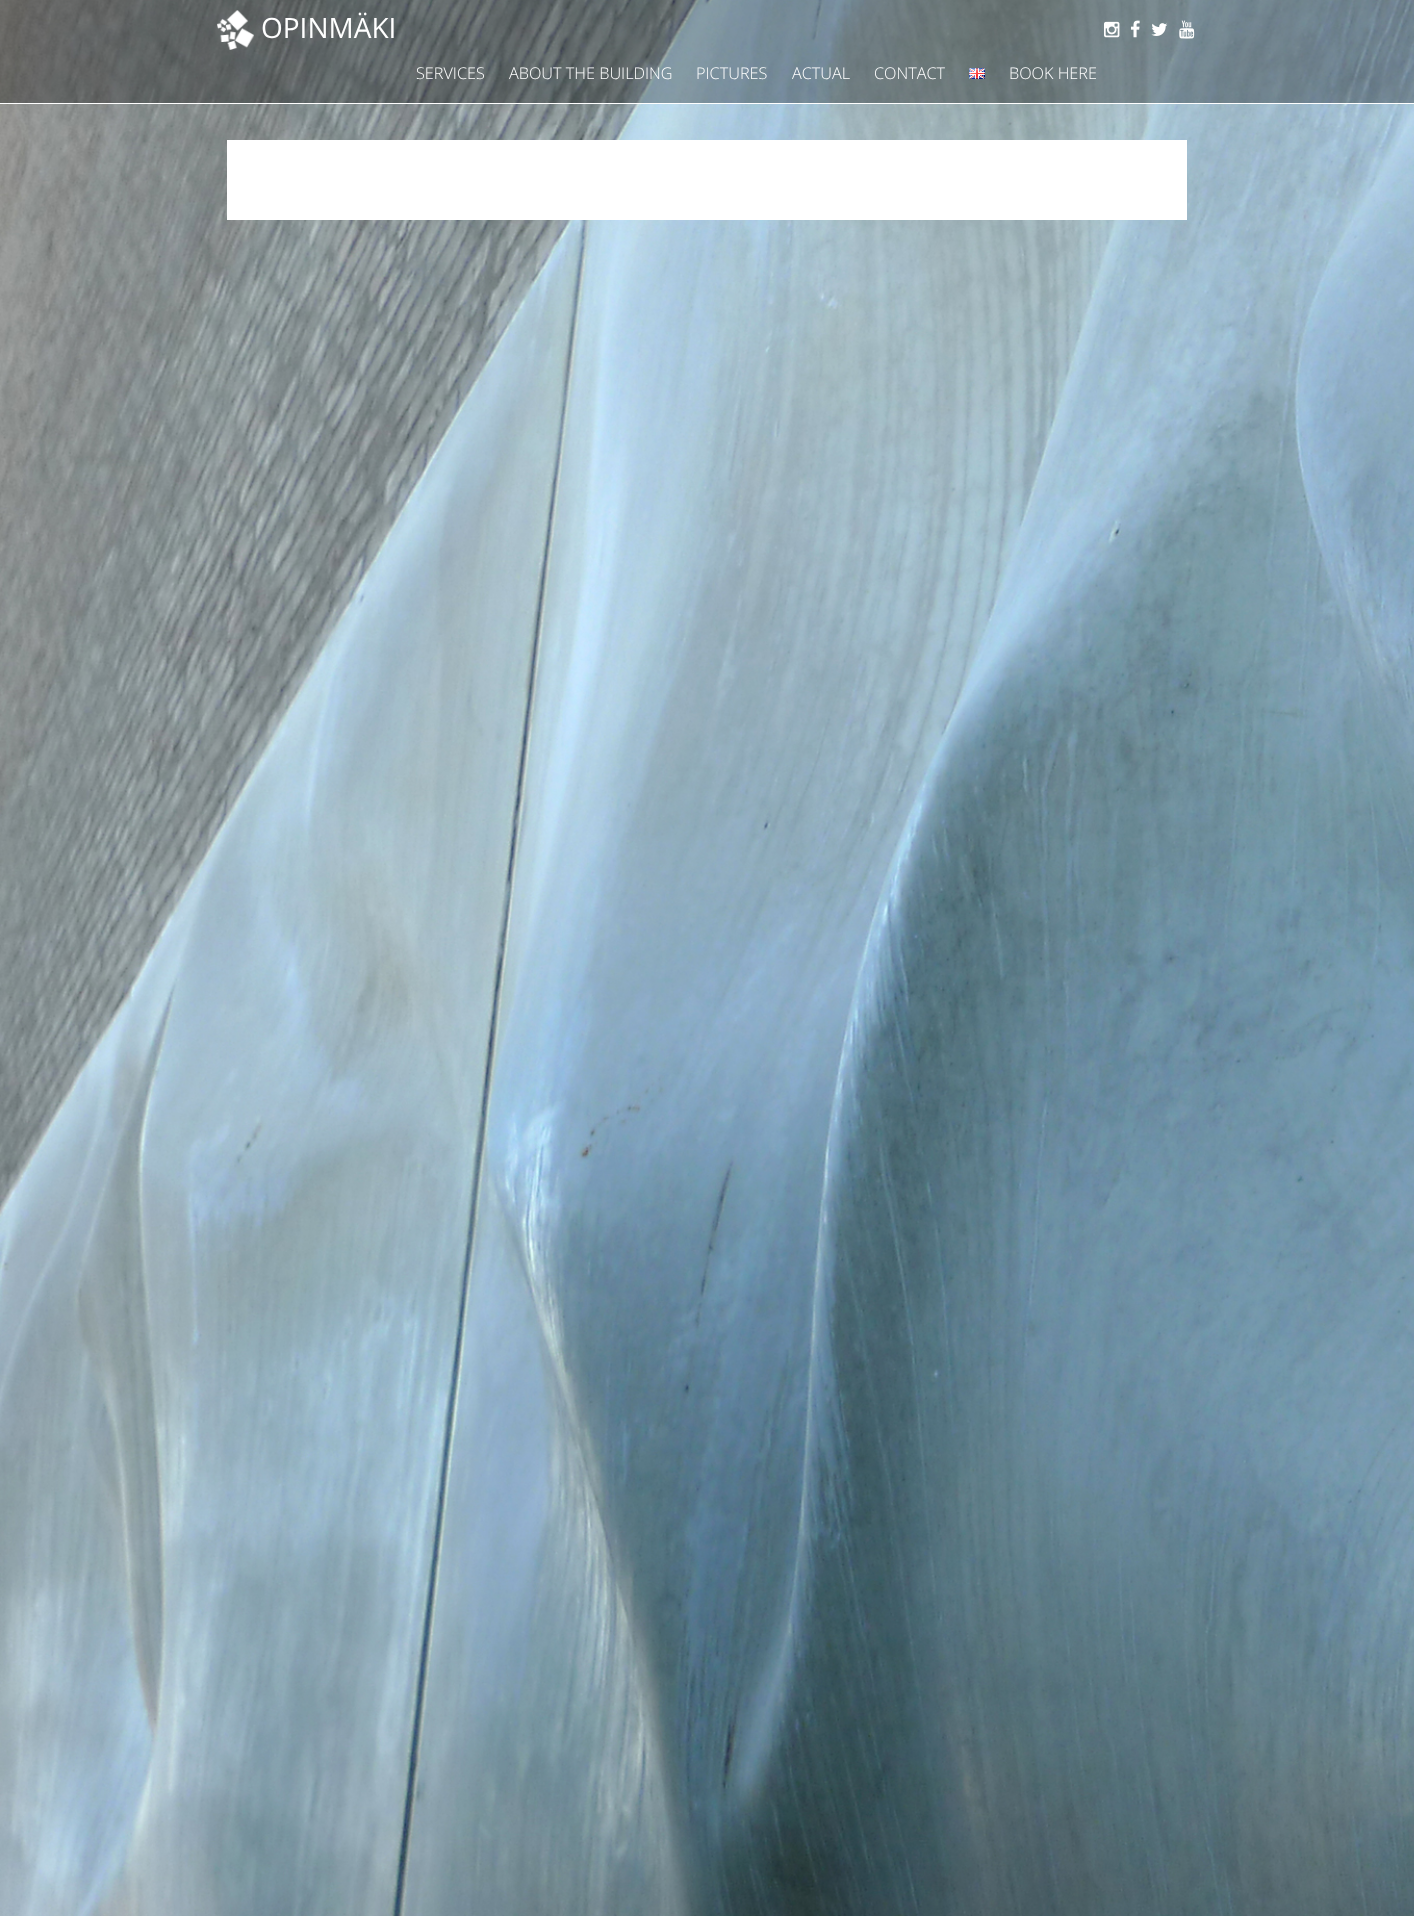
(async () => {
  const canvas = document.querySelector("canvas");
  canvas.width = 1414;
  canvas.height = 1916;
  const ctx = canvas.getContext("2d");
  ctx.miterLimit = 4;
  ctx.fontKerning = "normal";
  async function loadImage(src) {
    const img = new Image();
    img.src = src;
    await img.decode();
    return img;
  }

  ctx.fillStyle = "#ffffff";
  ctx.fillRect(0, 0, 1414, 1916);
  ctx.drawImage(await loadImage("img/1.png"), 0, 0, 1414, 1916);
  ctx.fillStyle = "rgba(0, 0, 0, 0.3)";
  ctx.fillRect(0, 0, 1414, 103);
  ctx.fillStyle = "#ffffff";
  ctx.fillRect(0, 103, 1414, 1);
  ctx.drawImage(await loadImage("img/2.png"), 217, 10, 37, 40);
  ctx.drawImage(await loadImage("img/3.png"), 1104, 21, 16, 17);
  ctx.drawImage(await loadImage("img/4.png"), 1130, 20, 10, 18);
  ctx.drawImage(await loadImage("img/5.png"), 1151, 23, 17, 13);
  ctx.drawImage(await loadImage("img/6.png"), 1179, 20, 16, 19);
  ctx.drawImage(await loadImage("img/7.png"), 969, 68, 16, 11);
  ctx.fillRect(227, 140, 960, 80);
  ctx.font = "28px Open Sans";
  ctx.fillText("OPINMÄKI", 261, 38);
  ctx.font = "300 16.25px Open Sans";
  for (const [text, x, y] of [
    ["SERVICES", 416, 79],
    ["ABOUT THE BUILDING", 509, 79],
    ["PICTURES", 696, 79],
    ["ACTUAL", 792, 79],
    ["CONTACT", 874, 79],
    ["BOOK HERE", 1009, 79],
  ]) {
    ctx.fillText(text, x, y);
  }
})();
